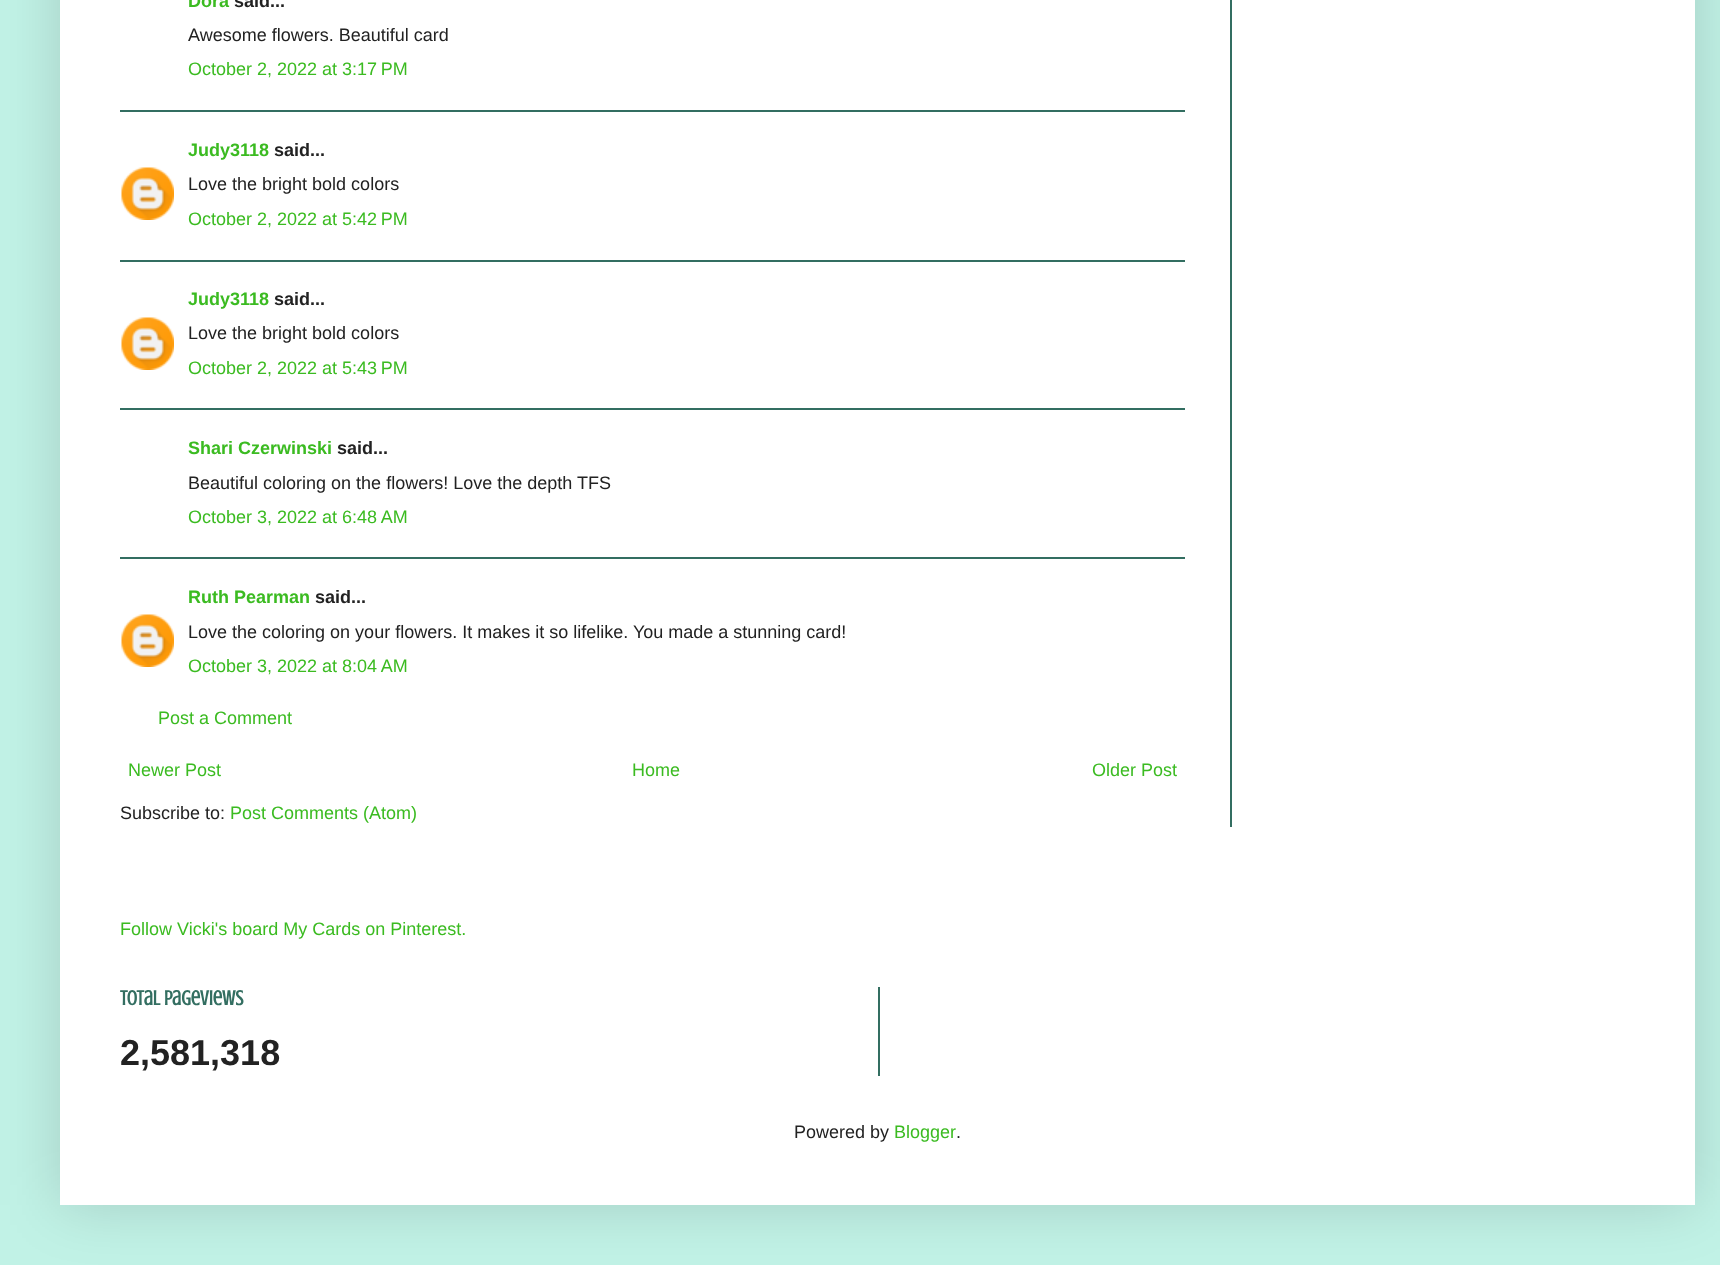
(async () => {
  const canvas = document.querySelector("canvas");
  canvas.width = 1720;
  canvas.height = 1265;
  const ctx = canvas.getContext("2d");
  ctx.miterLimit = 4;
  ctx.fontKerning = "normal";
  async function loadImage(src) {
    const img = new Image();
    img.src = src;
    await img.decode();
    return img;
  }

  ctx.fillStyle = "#c1f2e6";
  ctx.fillRect(0, 0, 1720, 1265);
  ctx.fillStyle = "rgba(0, 0, 0, 0.15)";
  ctx.filter = "blur(30px)";
  ctx.beginPath();
  ctx.rect(60, -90, 1635, 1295);
  ctx.fill();
  ctx.filter = "none";
  ctx.fillStyle = "#ffffff";
  ctx.fillRect(60, 0, 1635, 1205);
  ctx.fillStyle = "#336e61";
  ctx.fillRect(120, 110, 1065, 2);
  ctx.drawImage(await loadImage("img/1.png"), 121, 167, 53, 53);
  ctx.fillRect(120, 260, 1065, 2);
  ctx.drawImage(await loadImage("img/1.png"), 121, 317, 53, 53);
  ctx.fillRect(120, 408, 1065, 2);
  ctx.fillRect(120, 557, 1065, 2);
  ctx.drawImage(await loadImage("img/1.png"), 121, 614, 53, 53);
  ctx.fillRect(1230, 0, 2, 827);
  ctx.fillRect(878, 987, 2, 89);
  ctx.font = "bold 18px Liberation Sans";
  ctx.fillStyle = "#3bbb21";
  ctx.fillText("Dora", 188, 7);
  ctx.fillStyle = "#222222";
  ctx.fillText("said...", 234, 7);
  ctx.font = "18px Liberation Sans";
  ctx.fillText("Awesome flowers. Beautiful card", 188, 41);
  ctx.fillStyle = "#3bbb21";
  ctx.fillText("October 2, 2022 at 3:17 PM", 188, 75);
  ctx.font = "bold 18px Liberation Sans";
  ctx.fillText("Judy3118", 188, 156);
  ctx.fillStyle = "#222222";
  ctx.fillText("said...", 274, 156);
  ctx.font = "18px Liberation Sans";
  ctx.fillText("Love the bright bold colors", 188, 190);
  ctx.fillStyle = "#3bbb21";
  ctx.fillText("October 2, 2022 at 5:42 PM", 188, 225);
  ctx.font = "bold 18px Liberation Sans";
  ctx.fillText("Judy3118", 188, 305);
  ctx.fillStyle = "#222222";
  ctx.fillText("said...", 274, 305);
  ctx.font = "18px Liberation Sans";
  ctx.fillText("Love the bright bold colors", 188, 339);
  ctx.fillStyle = "#3bbb21";
  ctx.fillText("October 2, 2022 at 5:43 PM", 188, 374);
  ctx.font = "bold 18px Liberation Sans";
  ctx.fillText("Shari Czerwinski", 188, 454);
  ctx.fillStyle = "#222222";
  ctx.fillText("said...", 337, 454);
  ctx.font = "18px Liberation Sans";
  ctx.fillText("Beautiful coloring on the flowers! Love the depth TFS", 188, 489);
  ctx.fillStyle = "#3bbb21";
  ctx.fillText("October 3, 2022 at 6:48 AM", 188, 523);
  ctx.font = "bold 18px Liberation Sans";
  ctx.fillText("Ruth Pearman", 188, 603);
  ctx.fillStyle = "#222222";
  ctx.fillText("said...", 315, 603);
  ctx.font = "18px Liberation Sans";
  ctx.fillText("Love the coloring on your flowers. It makes it so lifelike. You made a stunning card!", 188, 638);
  ctx.fillStyle = "#3bbb21";
  for (const [text, x, y] of [
    ["October 3, 2022 at 8:04 AM", 188, 672],
    ["Post a Comment", 158, 724],
    ["Newer Post", 128, 776],
    ["Home", 632, 776],
    ["Older Post", 1092, 776],
  ]) {
    ctx.fillText(text, x, y);
  }
  ctx.fillStyle = "#222222";
  ctx.fillText("Subscribe to:", 120, 819);
  ctx.fillStyle = "#3bbb21";
  ctx.fillText("Post Comments (Atom)", 230, 819);
  ctx.fillText("Follow Vicki's board My Cards on Pinterest.", 120, 935);
  ctx.font = "bold 21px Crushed";
  ctx.fillStyle = "#336e61";
  ctx.fillText("Total Pageviews", 120, 1005);
  ctx.font = "bold 36px Liberation Sans";
  ctx.fillStyle = "#222222";
  ctx.fillText("2,581,318", 120, 1065);
  ctx.font = "18px Liberation Sans";
  ctx.fillText("Powered by", 794, 1138);
  ctx.fillStyle = "#3bbb21";
  ctx.fillText("Blogger", 894, 1138);
  ctx.fillStyle = "#222222";
  ctx.fillText(".", 956, 1138);
})();
